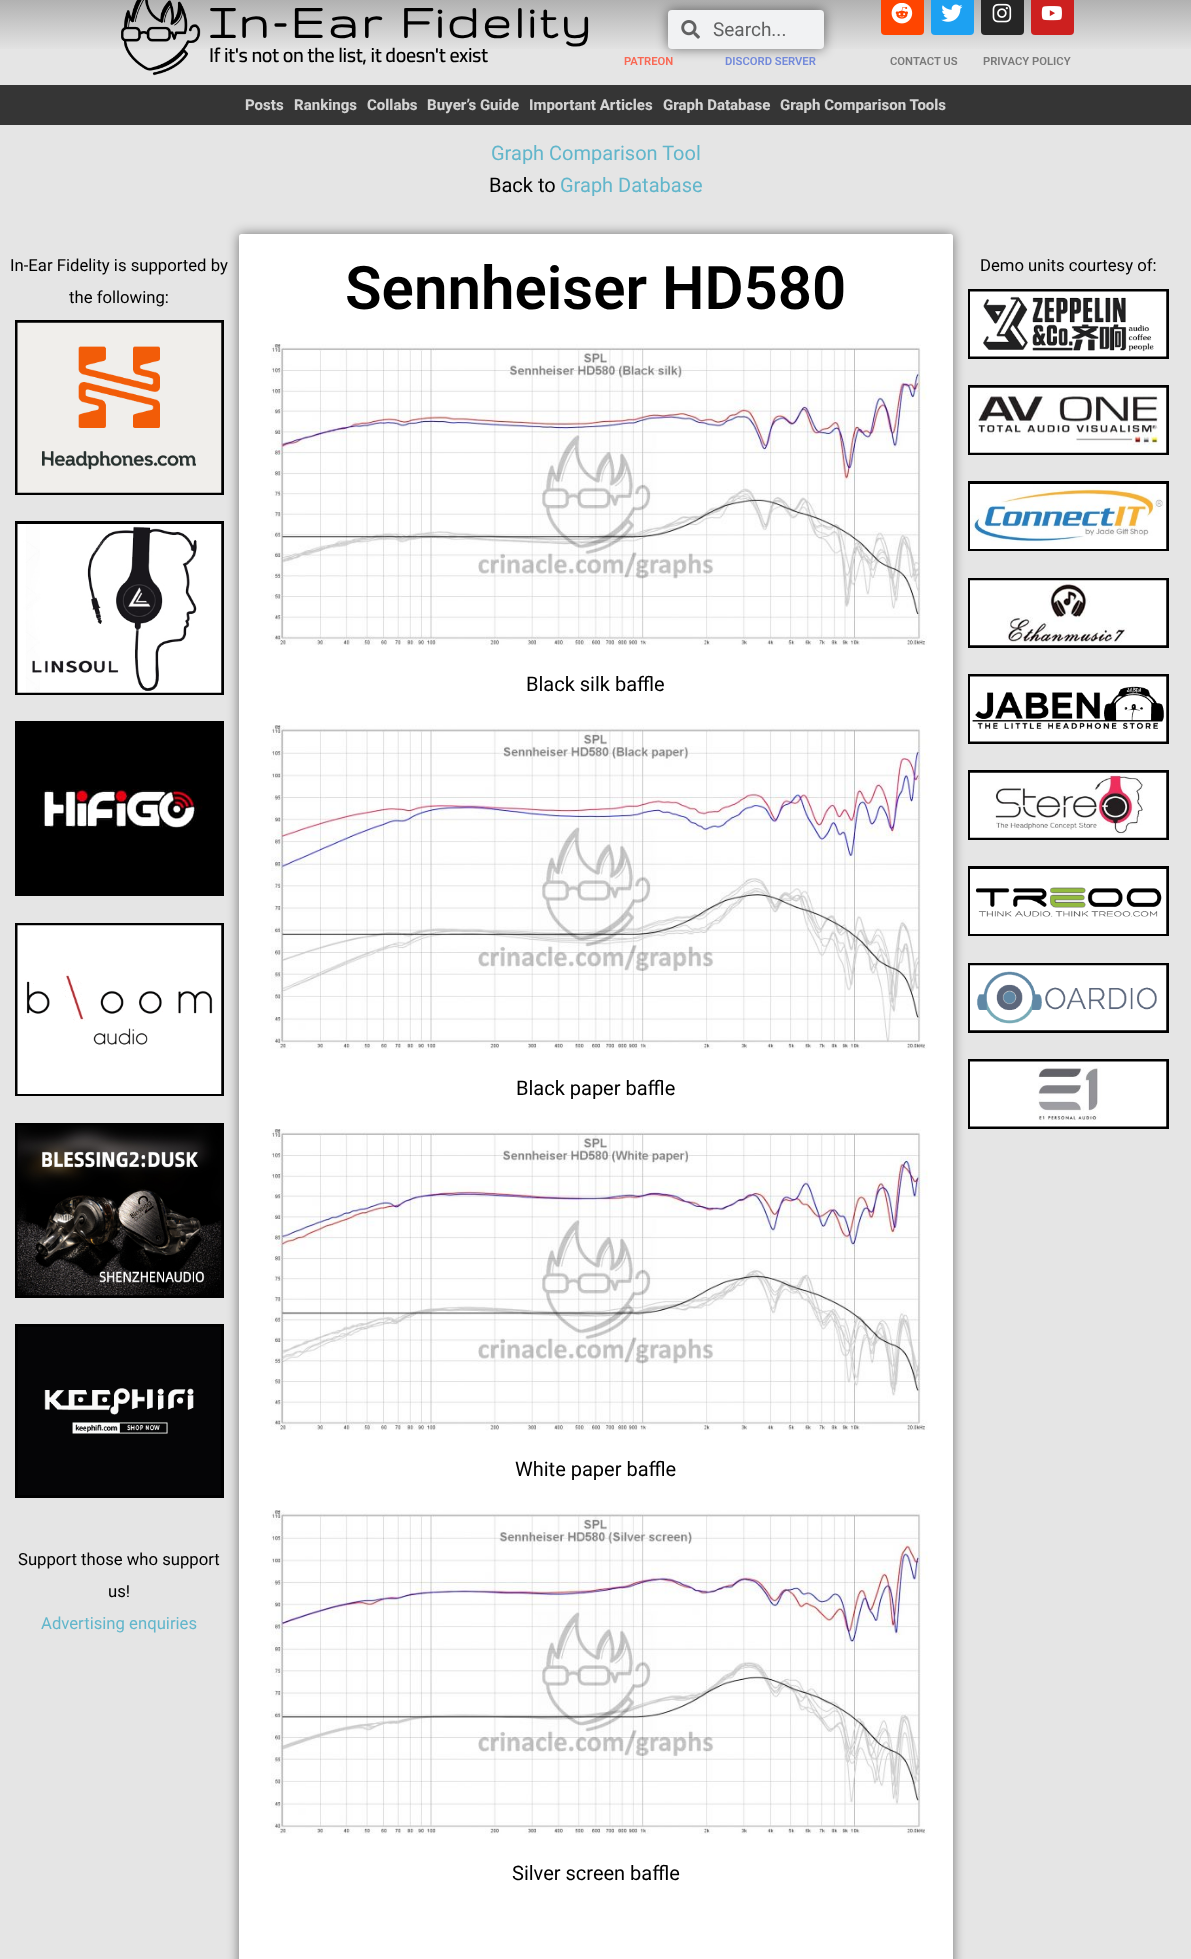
(async () => {
  const canvas = document.querySelector("canvas");
  canvas.width = 1191;
  canvas.height = 1959;
  const ctx = canvas.getContext("2d");
  ctx.miterLimit = 4;
  ctx.fontKerning = "normal";
  async function loadImage(src) {
    const img = new Image();
    img.src = src;
    await img.decode();
    return img;
  }
  let gradient;

  ctx.fillStyle = "#e5e5e5";
  ctx.fillRect(0, 0, 1191, 1959);
  gradient = ctx.createLinearGradient(596, -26, 596, 85);
  gradient.addColorStop(0, "#979797");
  gradient.addColorStop(0.7, "#e5e5e5");
  ctx.fillStyle = gradient;
  ctx.fillRect(0, 0, 1191, 49);
  ctx.drawImage(await loadImage("img/1.png"), 121, 0, 80, 76);
  ctx.fillStyle = "rgba(0, 0, 0, 0.5)";
  ctx.filter = "blur(6px)";
  ctx.beginPath();
  ctx.roundRect(668, 10, 156, 39, 4);
  ctx.fill();
  ctx.filter = "none";
  ctx.fillStyle = "#f1f2f3";
  ctx.beginPath();
  ctx.roundRect(668, 10, 156, 39, 4);
  ctx.fill();
  ctx.drawImage(await loadImage("img/2.png"), 681, 20, 19, 19);
  ctx.fillStyle = "#ff4500";
  ctx.beginPath();
  ctx.roundRect(881, -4, 43, 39, 4);
  ctx.fill();
  ctx.drawImage(await loadImage("img/3.png"), 891, 3, 22, 21);
  ctx.fillStyle = "#1da1f2";
  ctx.beginPath();
  ctx.roundRect(931, -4, 43, 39, 4);
  ctx.fill();
  ctx.drawImage(await loadImage("img/4.png"), 941, 4, 22, 18);
  ctx.fillStyle = "#262626";
  ctx.beginPath();
  ctx.roundRect(981, -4, 43, 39, 4);
  ctx.fill();
  ctx.drawImage(await loadImage("img/5.png"), 992, 3, 20, 20);
  ctx.fillStyle = "#cd201f";
  ctx.beginPath();
  ctx.roundRect(1031, -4, 43, 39, 4);
  ctx.fill();
  ctx.drawImage(await loadImage("img/6.png"), 1041, 6, 21, 15);
  ctx.fillStyle = "#353535";
  ctx.fillRect(0, 85, 1191, 40);
  ctx.strokeStyle = "#000000";
  ctx.lineWidth = 3;
  ctx.strokeRect(16.5, 321.5, 206, 172);
  ctx.drawImage(await loadImage("img/7.png"), 17, 322, 205, 171);
  ctx.strokeRect(16.5, 522.5, 206, 171);
  ctx.drawImage(await loadImage("img/8.png"), 17, 524, 205, 169);
  ctx.strokeRect(16.5, 722.5, 206, 172);
  ctx.drawImage(await loadImage("img/9.png"), 18, 724, 203, 169);
  ctx.strokeRect(16.5, 924.5, 206, 170);
  ctx.drawImage(await loadImage("img/10.png"), 17, 925, 205, 169);
  ctx.strokeRect(16.5, 1124.5, 206, 172);
  ctx.drawImage(await loadImage("img/11.png"), 17, 1125, 205, 171);
  ctx.strokeRect(16.5, 1325.5, 206, 171);
  ctx.drawImage(await loadImage("img/12.png"), 18, 1327, 203, 168);
  ctx.fillStyle = "rgba(0, 0, 0, 0.5)";
  ctx.filter = "blur(6px)";
  ctx.beginPath();
  ctx.roundRect(239, 234, 714, 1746, 2.5);
  ctx.fill();
  ctx.filter = "none";
  ctx.fillStyle = "#ffffff";
  ctx.beginPath();
  ctx.roundRect(239, 234, 714, 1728, 2.5);
  ctx.fill();
  ctx.drawImage(await loadImage("img/13.png"), 271, 344, 656, 302);
  ctx.drawImage(await loadImage("img/14.png"), 271, 725, 657, 324);
  ctx.drawImage(await loadImage("img/15.png"), 271, 1129, 657, 302);
  ctx.drawImage(await loadImage("img/16.png"), 271, 1510, 657, 324);
  ctx.strokeRect(969.5, 290.5, 198, 67);
  ctx.drawImage(await loadImage("img/17.png"), 970, 291, 197, 66);
  ctx.strokeRect(969.5, 386.5, 198, 67);
  ctx.drawImage(await loadImage("img/18.png"), 970, 387, 197, 66);
  ctx.strokeRect(969.5, 482.5, 198, 67);
  ctx.drawImage(await loadImage("img/19.png"), 970, 484, 197, 65);
  ctx.strokeRect(969.5, 579.5, 198, 67);
  ctx.drawImage(await loadImage("img/20.png"), 970, 580, 197, 66);
  ctx.strokeRect(969.5, 675.5, 198, 67);
  ctx.drawImage(await loadImage("img/21.png"), 970, 676, 197, 66);
  ctx.strokeRect(969.5, 771.5, 198, 67);
  ctx.drawImage(await loadImage("img/22.png"), 970, 772, 197, 66);
  ctx.strokeRect(969.5, 867.5, 198, 67);
  ctx.drawImage(await loadImage("img/23.png"), 970, 869, 197, 65);
  ctx.strokeRect(969.5, 964.5, 198, 67);
  ctx.drawImage(await loadImage("img/24.png"), 970, 965, 197, 66);
  ctx.strokeRect(969.5, 1060.5, 198, 67);
  ctx.drawImage(await loadImage("img/25.png"), 970, 1061, 197, 66);
  ctx.letterSpacing = "3.25px";
  ctx.font = "bold 52.5px Gruppo";
  ctx.fillStyle = "#000000";
  ctx.fillText("In-Ear Fidelity", 209, 38);
  ctx.letterSpacing = "-0.4px";
  ctx.font = "600 20px Cairo";
  ctx.fillText("If it's not on the list, it doesn't exist", 209, 62);
  ctx.letterSpacing = "0px";
  ctx.font = "19px Roboto";
  ctx.fillStyle = "#606161";
  ctx.fillText("Search...", 713, 36);
  ctx.font = "600 11.25px Roboto";
  ctx.fillStyle = "#f96854";
  ctx.fillText("PATREON", 624, 65);
  ctx.fillStyle = "#7289da";
  ctx.fillText("DISCORD SERVER", 725, 65);
  ctx.fillStyle = "#7a7a7a";
  ctx.fillText("CONTACT US", 890, 65);
  ctx.fillText("PRIVACY POLICY", 983, 65);
  ctx.font = "800 15px Roboto";
  ctx.fillStyle = "#d3d3d3";
  for (const [text, x, y] of [
    ["Posts", 245, 110],
    ["Rankings", 294, 110],
    ["Collabs", 367, 110],
    ["Buyer’s Guide", 427, 110],
    ["Important Articles", 529, 110],
    ["Graph Database", 663, 110],
    ["Graph Comparison Tools", 780, 110],
  ]) {
    ctx.fillText(text, x, y);
  }
  ctx.font = "20px Roboto";
  ctx.fillStyle = "#62b6cb";
  ctx.fillText("Graph Comparison Tool", 491, 160);
  ctx.fillStyle = "#000000";
  ctx.fillText("Back to", 489, 192);
  ctx.fillStyle = "#62b6cb";
  ctx.fillText("Graph Database", 560, 192);
  ctx.font = "16.7px Roboto";
  ctx.fillStyle = "#000000";
  for (const [text, x, y] of [
    ["In-Ear Fidelity is supported by", 10, 271],
    ["the following:", 69, 303],
    ["Support those who support", 18, 1565],
    ["us!", 108, 1597],
  ]) {
    ctx.fillText(text, x, y);
  }
  ctx.fillStyle = "#62b6cb";
  ctx.fillText("Advertising enquiries", 41, 1629);
  ctx.font = "600 60px Roboto";
  ctx.fillStyle = "#000000";
  ctx.fillText("Sennheiser HD580", 345, 309);
  ctx.font = "20px Roboto";
  for (const [text, x, y] of [
    ["Black silk baffle", 526, 691],
    ["Black paper baffle", 516, 1095],
    ["White paper baffle", 515, 1476],
    ["Silver screen baffle", 512, 1880],
  ]) {
    ctx.fillText(text, x, y);
  }
  ctx.font = "16.7px Roboto";
  ctx.fillText("Demo units courtesy of:", 980, 271);
})();
